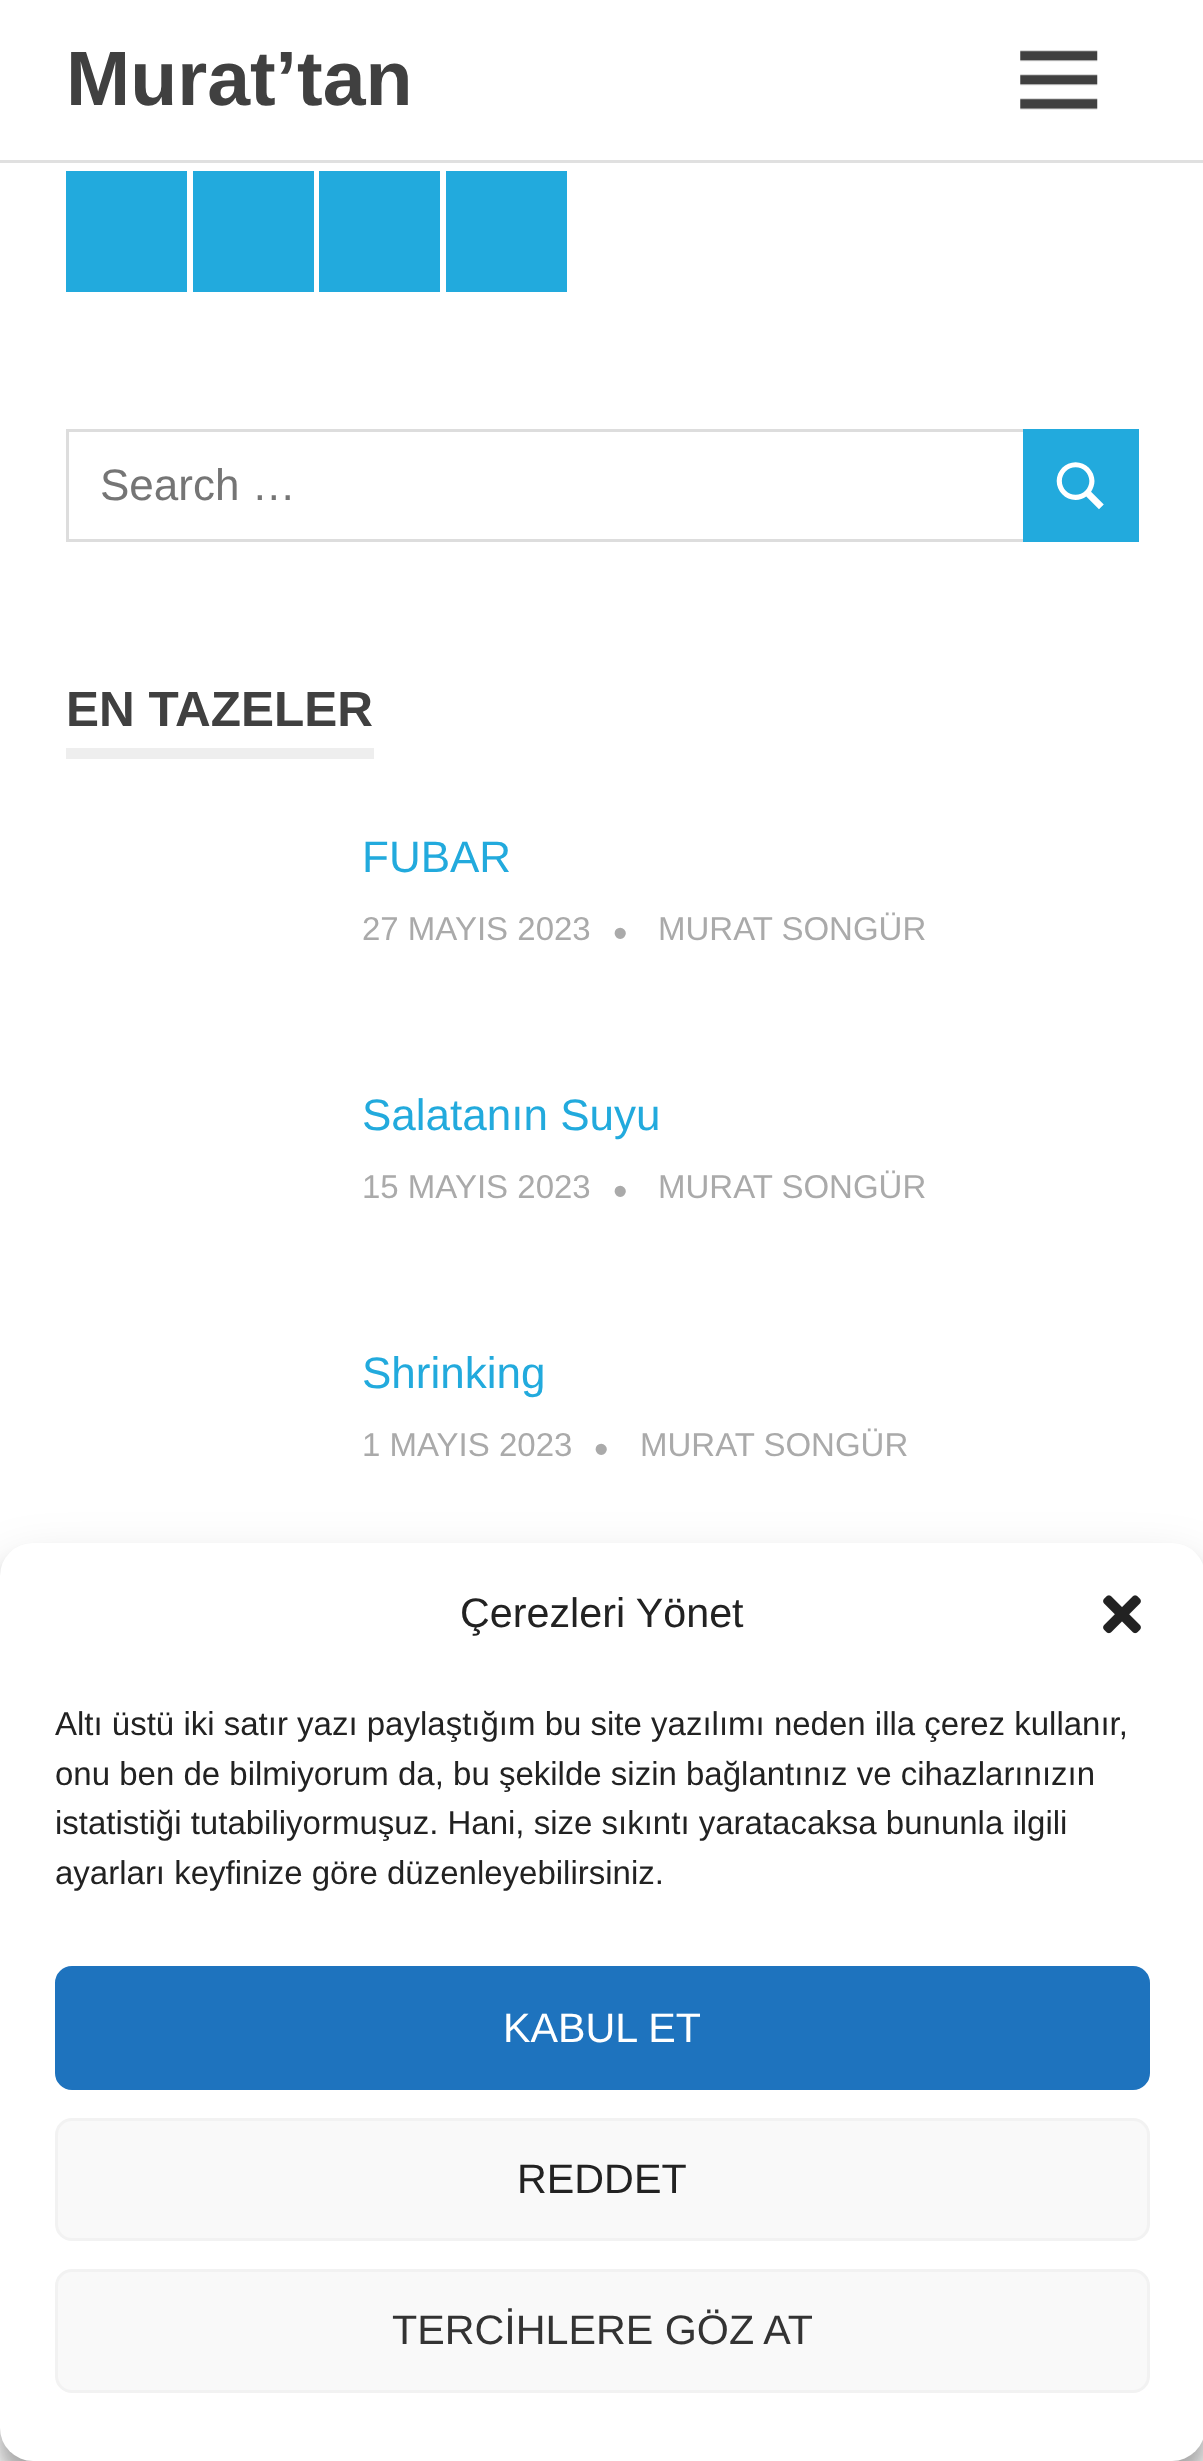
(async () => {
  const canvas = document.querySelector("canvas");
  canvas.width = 1203;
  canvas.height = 2461;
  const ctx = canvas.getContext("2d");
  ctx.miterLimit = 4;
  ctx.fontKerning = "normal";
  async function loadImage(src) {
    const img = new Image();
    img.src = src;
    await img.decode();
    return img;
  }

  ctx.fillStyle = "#ffffff";
  ctx.fillRect(0, 0, 1203, 2461);
  ctx.fillStyle = "#e0e0e0";
  ctx.fillRect(0, 160, 1203, 3);
  ctx.drawImage(await loadImage("img/1.png"), 1020, 50, 78, 60);
  for (const [x, y, w, h, color] of [
    [66, 171, 121, 121, "#22aadd"],
    [193, 171, 121, 121, "#22aadd"],
    [319, 171, 121, 121, "#22aadd"],
    [446, 171, 121, 121, "#22aadd"],
  ]) {
    ctx.fillStyle = color;
    ctx.fillRect(x, y, w, h);
  }
  ctx.strokeStyle = "#dddddd";
  ctx.lineWidth = 3;
  ctx.strokeRect(67.5, 430.5, 957, 110);
  ctx.fillRect(1023, 429, 116, 113);
  ctx.drawImage(await loadImage("img/2.png"), 1056, 462, 48, 48);
  ctx.fillStyle = "#eeeeee";
  ctx.fillRect(66, 748, 308, 11);
  ctx.fillStyle = "rgba(0, 0, 0, 0.23)";
  ctx.filter = "blur(8px)";
  ctx.beginPath();
  ctx.roundRect(0, 1559, 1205, 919, 33);
  ctx.fill();
  ctx.filter = "none";
  ctx.fillStyle = "rgba(0, 0, 0, 0.19)";
  ctx.filter = "blur(27.5px)";
  ctx.beginPath();
  ctx.roundRect(0, 1570, 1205, 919, 33);
  ctx.fill();
  ctx.filter = "none";
  ctx.fillStyle = "#ffffff";
  ctx.beginPath();
  ctx.roundRect(0, 1543, 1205, 918, 33);
  ctx.fill();
  ctx.drawImage(await loadImage("img/3.png"), 1103, 1595, 38, 39);
  ctx.fillStyle = "#1e73be";
  ctx.beginPath();
  ctx.roundRect(56.5, 1967.5, 1092, 121, 15.5);
  ctx.fill();
  ctx.strokeStyle = "#1e73be";
  ctx.stroke();
  ctx.fillStyle = "#f9f9f9";
  ctx.beginPath();
  ctx.roundRect(56.5, 2119.5, 1092, 120, 15.5);
  ctx.fill();
  ctx.strokeStyle = "#f2f2f2";
  ctx.stroke();
  ctx.beginPath();
  ctx.roundRect(56.5, 2270.5, 1092, 121, 15.5);
  ctx.fill();
  ctx.stroke();
  ctx.font = "bold 77px Liberation Sans";
  ctx.fillStyle = "#404040";
  ctx.fillText("Murat’tan", 66, 105);
  ctx.font = "44px Liberation Sans";
  ctx.fillStyle = "#757575";
  ctx.fillText("Search …", 100, 500);
  ctx.font = "bold 49.5px Liberation Sans";
  ctx.fillStyle = "#404040";
  ctx.fillText("EN TAZELER", 66, 726);
  ctx.font = "44px Liberation Sans";
  ctx.fillStyle = "#22aadd";
  ctx.fillText("FUBAR", 362, 872);
  ctx.font = "33px Liberation Sans";
  ctx.fillStyle = "#aaaaaa";
  ctx.fillText("27 MAYIS 2023", 362, 940);
  ctx.font = "41.25px Liberation Sans";
  ctx.fillText("•", 613, 947);
  ctx.font = "33px Liberation Sans";
  ctx.fillText("MURAT SONGÜR", 658, 940);
  ctx.font = "44px Liberation Sans";
  ctx.fillStyle = "#22aadd";
  ctx.fillText("Salatanın Suyu", 362, 1130);
  ctx.font = "33px Liberation Sans";
  ctx.fillStyle = "#aaaaaa";
  ctx.fillText("15 MAYIS 2023", 362, 1198);
  ctx.font = "41.25px Liberation Sans";
  ctx.fillText("•", 613, 1205);
  ctx.font = "33px Liberation Sans";
  ctx.fillText("MURAT SONGÜR", 658, 1198);
  ctx.font = "44px Liberation Sans";
  ctx.fillStyle = "#22aadd";
  ctx.fillText("Shrinking", 362, 1388);
  ctx.font = "33px Liberation Sans";
  ctx.fillStyle = "#aaaaaa";
  ctx.fillText("1 MAYIS 2023", 362, 1456);
  ctx.font = "41.25px Liberation Sans";
  ctx.fillText("•", 594, 1463);
  ctx.font = "33px Liberation Sans";
  ctx.fillText("MURAT SONGÜR", 640, 1456);
  ctx.font = "41.25px Liberation Sans";
  ctx.fillStyle = "#222222";
  ctx.fillText("Çerezleri Yönet", 460, 1627);
  ctx.font = "33px Liberation Sans";
  for (const [text, x, y] of [
    ["Altı üstü iki satır yazı paylaştığım bu site yazılımı neden illa çerez kullanır,", 55, 1735],
    ["onu ben de bilmiyorum da, bu şekilde sizin bağlantınız ve cihazlarınızın", 55, 1785],
    ["istatistiği tutabiliyormuşuz. Hani, size sıkıntı yaratacaksa bununla ilgili", 55, 1834],
    ["ayarları keyfinize göre düzenleyebilirsiniz.", 55, 1884],
  ]) {
    ctx.fillText(text, x, y);
  }
  ctx.font = "41.25px Liberation Sans";
  ctx.fillStyle = "#ffffff";
  ctx.fillText("KABUL ET", 503, 2042);
  ctx.fillStyle = "#222222";
  ctx.fillText("REDDET", 517, 2193);
  ctx.fillStyle = "#333333";
  ctx.fillText("TERCİHLERE GÖZ AT", 392, 2344);
})();
